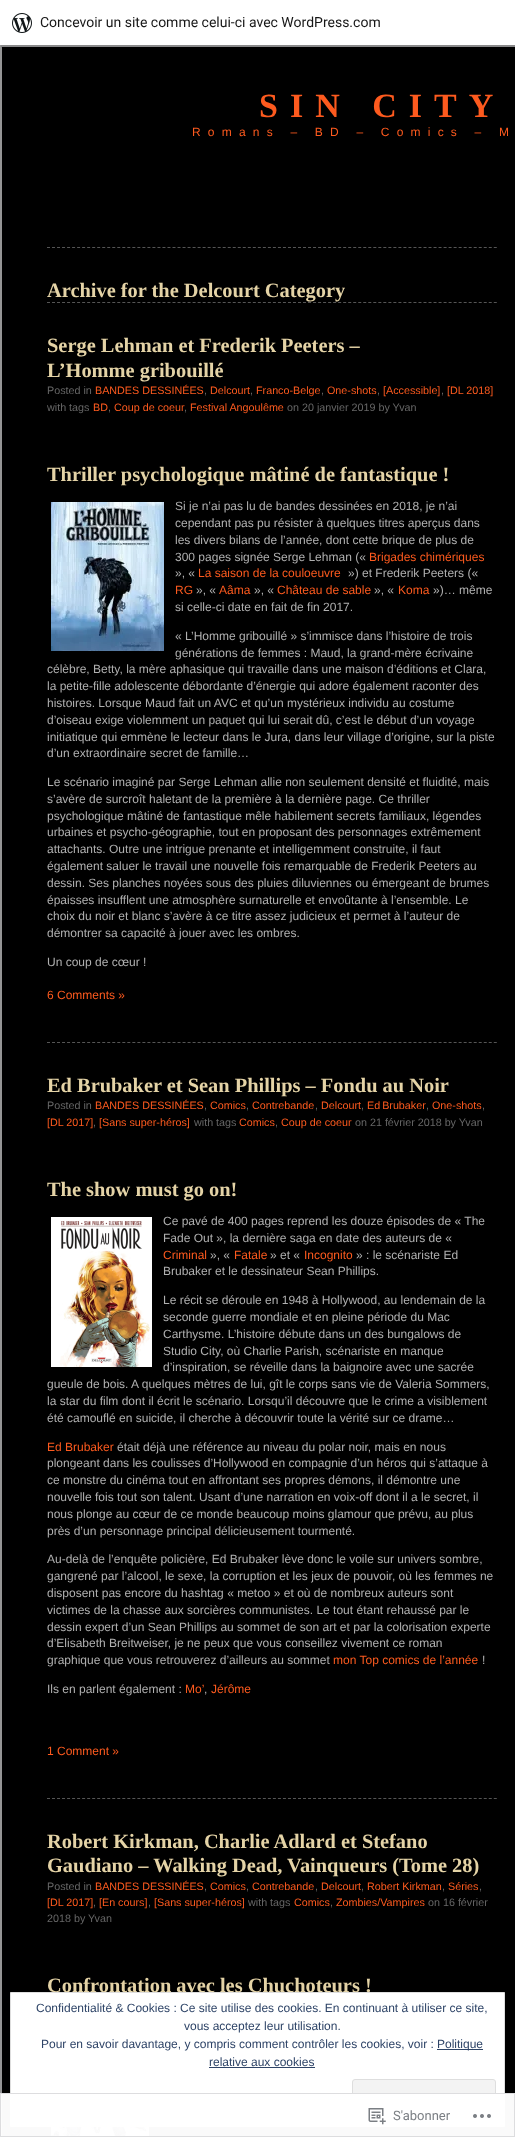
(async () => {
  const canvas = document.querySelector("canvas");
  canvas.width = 515;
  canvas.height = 2137;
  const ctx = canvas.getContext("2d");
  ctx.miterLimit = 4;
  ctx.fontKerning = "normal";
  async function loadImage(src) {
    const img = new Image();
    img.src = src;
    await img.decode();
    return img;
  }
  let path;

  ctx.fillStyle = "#000000";
  ctx.fillRect(0, 0, 515, 2137);
  ctx.strokeStyle = "#959596";
  ctx.lineWidth = 2;
  ctx.strokeRect(1, 46, 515, 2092);
  ctx.fillStyle = "rgba(0, 0, 0, 0.08)";
  path = new Path2D("M1 45V48H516V3H515V45Z");
  ctx.fill(path);
  ctx.fillStyle = "#ffffff";
  ctx.fillRect(0, 0, 515, 45);
  ctx.drawImage(await loadImage("img/1.png"), 12, 13, 20, 20);
  path = new Path2D("M47 247.5H497");
  ctx.strokeStyle = "#555555";
  ctx.lineWidth = 1;
  ctx.setLineDash([3, 2.02]);
  ctx.stroke(path);
  path = new Path2D("M47 302.5H497");
  ctx.stroke(path);
  ctx.drawImage(await loadImage("img/2.png"), 51, 502, 113, 149);
  path = new Path2D("M47 1042.5H497");
  ctx.stroke(path);
  ctx.drawImage(await loadImage("img/3.png"), 51, 1217, 101, 150);
  path = new Path2D("M47 1798.5H497");
  ctx.stroke(path);
  ctx.drawImage(await loadImage("img/4.png"), 51, 2127, 98, 10);
  ctx.font = "14px Roboto";
  ctx.fillStyle = "#171717";
  ctx.fillText("Concevoir un site comme celui-ci avec WordPress.com", 40, 27);
  ctx.letterSpacing = "12px";
  ctx.font = "bold 34px Liberation Serif";
  ctx.fillStyle = "#fd5a1e";
  ctx.fillText("SIN CITY", 259, 117);
  ctx.letterSpacing = "7.2px";
  ctx.font = "12px Liberation Sans";
  ctx.fillText("Romans – BD – Comics – M", 192, 136);
  ctx.letterSpacing = "0px";
  ctx.font = "bold 20.4px Liberation Serif";
  ctx.fillStyle = "#e4d3a6";
  for (const [text, x, y] of [
    ["Archive for the Delcourt Category", 47, 297],
    ["Serge Lehman et Frederik Peeters –", 47, 352],
    ["L’Homme gribouillé", 47, 377],
  ]) {
    ctx.fillText(text, x, y);
  }
  ctx.font = "10.75px Liberation Sans";
  ctx.fillStyle = "#666666";
  ctx.fillText("Posted in", 47, 394);
  ctx.fillStyle = "#fd5a1e";
  ctx.fillText("BANDES DESSINÉES", 95, 394);
  ctx.fillStyle = "#666666";
  ctx.fillText(",", 204, 394);
  ctx.fillStyle = "#fd5a1e";
  ctx.fillText("Delcourt", 210, 394);
  ctx.fillStyle = "#666666";
  ctx.fillText(",", 250, 394);
  ctx.fillStyle = "#fd5a1e";
  ctx.fillText("Franco-Belge", 256, 394);
  ctx.fillStyle = "#666666";
  ctx.fillText(",", 321, 394);
  ctx.fillStyle = "#fd5a1e";
  ctx.fillText("One-shots", 327, 394);
  ctx.fillStyle = "#666666";
  ctx.fillText(",", 377, 394);
  ctx.fillStyle = "#fd5a1e";
  ctx.fillText("[Accessible]", 383, 394);
  ctx.fillStyle = "#666666";
  ctx.fillText(",", 441, 394);
  ctx.fillStyle = "#fd5a1e";
  ctx.fillText("[DL 2018]", 447, 394);
  ctx.fillStyle = "#666666";
  ctx.fillText("with tags", 47, 411);
  ctx.fillStyle = "#fd5a1e";
  ctx.fillText("BD", 93, 411);
  ctx.fillStyle = "#666666";
  ctx.fillText(",", 108, 411);
  ctx.fillStyle = "#fd5a1e";
  ctx.fillText("Coup de coeur", 114, 411);
  ctx.fillStyle = "#666666";
  ctx.fillText(",", 184, 411);
  ctx.fillStyle = "#fd5a1e";
  ctx.fillText("Festival Angoulême", 190, 411);
  ctx.fillStyle = "#666666";
  ctx.fillText("on 20 janvier 2019 by Yvan", 287, 411);
  ctx.font = "bold 20.4px Liberation Serif";
  ctx.fillStyle = "#e4d3a6";
  ctx.fillText("Thriller psychologique mâtiné de fantastique !", 47, 481);
  ctx.font = "12px Liberation Sans";
  ctx.fillStyle = "#b0b0b0";
  for (const [text, x, y] of [
    ["Si je n’ai pas lu de bandes dessinées en 2018, je n’ai", 175, 510],
    ["cependant pas pu résister à quelques titres aperçus dans", 175, 527],
    ["les divers bilans de l’année, dont cette brique de plus de", 175, 544],
    ["300 pages signée Serge Lehman («", 175, 561],
  ]) {
    ctx.fillText(text, x, y);
  }
  ctx.fillStyle = "#fd5a1e";
  ctx.fillText("Brigades chimériques", 369, 561);
  ctx.fillStyle = "#b0b0b0";
  ctx.fillText("», «", 175, 577);
  ctx.fillStyle = "#fd5a1e";
  ctx.fillText("La saison de la couloeuvre", 198, 577);
  ctx.fillStyle = "#b0b0b0";
  ctx.fillText("») et Frederik Peeters («", 348, 577);
  ctx.fillStyle = "#fd5a1e";
  ctx.fillText("RG", 175, 594);
  ctx.fillStyle = "#b0b0b0";
  ctx.fillText("», «", 196, 594);
  ctx.fillStyle = "#fd5a1e";
  ctx.fillText("Aâma", 219, 594);
  ctx.fillStyle = "#b0b0b0";
  ctx.fillText("», «", 254, 594);
  ctx.fillStyle = "#fd5a1e";
  ctx.fillText("Château de sable", 277, 594);
  ctx.fillStyle = "#b0b0b0";
  ctx.fillText("», «", 374, 594);
  ctx.fillStyle = "#fd5a1e";
  ctx.fillText("Koma", 398, 594);
  ctx.fillStyle = "#b0b0b0";
  for (const [text, x, y] of [
    ["»)… même", 433, 594],
    ["si celle-ci date en fait de fin 2017.", 175, 611],
    ["« L’Homme gribouillé » s’immisce dans l’histoire de trois", 175, 640],
    ["générations de femmes : Maud, la grand-mère écrivaine", 175, 657],
    ["célèbre, Betty, la mère aphasique qui travaille dans une maison d’éditions et Clara,", 47, 673],
    ["la petite-fille adolescente débordante d’énergie qui adore également raconter des", 47, 690],
    ["histoires. Lorsque Maud fait un AVC et qu’un mystérieux individu au costume", 47, 707],
    ["d’oiseau exige violemment un paquet qui lui serait dû, c’est le début d’un voyage", 47, 724],
    ["initiatique qui emmène le lecteur dans le Jura, dans leur village d’origine, sur la piste", 47, 741],
    ["d’un extraordinaire secret de famille…", 47, 757],
    ["Le scénario imaginé par Serge Lehman allie non seulement densité et fluidité, mais", 47, 786],
    ["s’avère de surcroît haletant de la première à la dernière page. Ce thriller", 47, 803],
    ["psychologique mâtiné de fantastique mêle habilement secrets familiaux, légendes", 47, 820],
    ["urbaines et psycho-géographie, tout en proposant des personnages extrêmement", 47, 836],
    ["attachants. Outre une intrigue prenante et intelligemment construite, il faut", 47, 853],
    ["également saluer le travail une nouvelle fois remarquable de Frederik Peeters au", 47, 870],
    ["dessin. Ses planches noyées sous des pluies diluviennes ou émergeant de brumes", 47, 887],
    ["épaisses insufflent une atmosphère surnaturelle et envoûtante à l’ensemble. Le", 47, 904],
    ["choix du noir et blanc s’avère à ce titre assez judicieux et permet à l’auteur de", 47, 920],
    ["démontrer sa capacité à jouer avec les ombres.", 47, 937],
    ["Un coup de cœur !", 47, 966],
  ]) {
    ctx.fillText(text, x, y);
  }
  ctx.fillStyle = "#fd5a1e";
  ctx.fillText("6 Comments »", 47, 999);
  ctx.font = "bold 20.4px Liberation Serif";
  ctx.fillStyle = "#e4d3a6";
  ctx.fillText("Ed Brubaker et Sean Phillips – Fondu au Noir", 47, 1092);
  ctx.font = "10.75px Liberation Sans";
  ctx.fillStyle = "#666666";
  ctx.fillText("Posted in", 47, 1109);
  ctx.fillStyle = "#fd5a1e";
  ctx.fillText("BANDES DESSINÉES", 95, 1109);
  ctx.fillStyle = "#666666";
  ctx.fillText(",", 204, 1109);
  ctx.fillStyle = "#fd5a1e";
  ctx.fillText("Comics", 210, 1109);
  ctx.fillStyle = "#666666";
  ctx.fillText(",", 246, 1109);
  ctx.fillStyle = "#fd5a1e";
  ctx.fillText("Contrebande", 252, 1109);
  ctx.fillStyle = "#666666";
  ctx.fillText(",", 315, 1109);
  ctx.fillStyle = "#fd5a1e";
  ctx.fillText("Delcourt", 321, 1109);
  ctx.fillStyle = "#666666";
  ctx.fillText(",", 361, 1109);
  ctx.wordSpacing = "-1px";
  ctx.fillStyle = "#fd5a1e";
  ctx.fillText("Ed Brubaker", 367, 1109);
  ctx.wordSpacing = "0px";
  ctx.fillStyle = "#666666";
  ctx.fillText(",", 426, 1109);
  ctx.fillStyle = "#fd5a1e";
  ctx.fillText("One-shots", 432, 1109);
  ctx.fillStyle = "#666666";
  ctx.fillText(",", 482, 1109);
  ctx.fillStyle = "#fd5a1e";
  ctx.fillText("[DL 2017]", 47, 1126);
  ctx.fillStyle = "#666666";
  ctx.fillText(",", 93, 1126);
  ctx.fillStyle = "#fd5a1e";
  ctx.fillText("[Sans super-héros]", 99, 1126);
  ctx.fillStyle = "#666666";
  ctx.fillText("with tags", 194, 1126);
  ctx.fillStyle = "#fd5a1e";
  ctx.fillText("Comics", 239, 1126);
  ctx.fillStyle = "#666666";
  ctx.fillText(",", 275, 1126);
  ctx.fillStyle = "#fd5a1e";
  ctx.fillText("Coup de coeur", 281, 1126);
  ctx.fillStyle = "#666666";
  ctx.fillText("on 21 février 2018 by Yvan", 355, 1126);
  ctx.font = "bold 20.4px Liberation Serif";
  ctx.fillStyle = "#e4d3a6";
  ctx.fillText("The show must go on!", 47, 1196);
  ctx.font = "12px Liberation Sans";
  ctx.fillStyle = "#b0b0b0";
  ctx.fillText("Ce pavé de 400 pages reprend les douze épisodes de « The", 163, 1225);
  ctx.fillText("Fade Out », la dernière saga en date des auteurs de «", 163, 1242);
  ctx.fillStyle = "#fd5a1e";
  ctx.fillText("Criminal", 163, 1259);
  ctx.fillStyle = "#b0b0b0";
  ctx.fillText("», «", 210, 1259);
  ctx.fillStyle = "#fd5a1e";
  ctx.fillText("Fatale", 234, 1259);
  ctx.fillStyle = "#b0b0b0";
  ctx.fillText("» et «", 270, 1259);
  ctx.fillStyle = "#fd5a1e";
  ctx.fillText("Incognito", 304, 1259);
  ctx.fillStyle = "#b0b0b0";
  for (const [text, x, y] of [
    ["» : le scénariste Ed", 356, 1259],
    ["Brubaker et le dessinateur Sean Phillips.", 163, 1275],
    ["Le récit se déroule en 1948 à Hollywood, au lendemain de la", 163, 1304],
    ["seconde guerre mondiale et en pleine période du Mac", 163, 1321],
    ["Carthysme. L’histoire débute dans un des bungalows de", 163, 1338],
    ["Studio City, où Charlie Parish, scénariste en manque", 163, 1355],
    ["d’inspiration, se réveille dans la baignoire avec une sacrée", 163, 1371],
    ["gueule de bois. A quelques mètres de lui, gît le corps sans vie de Valeria Sommers,", 47, 1388],
    ["la star du film dont il écrit le scénario. Lorsqu’il découvre que le crime a visiblement", 47, 1405],
    ["été camouflé en suicide, il cherche à découvrir toute la vérité sur ce drame…", 47, 1422],
  ]) {
    ctx.fillText(text, x, y);
  }
  ctx.fillStyle = "#fd5a1e";
  ctx.fillText("Ed Brubaker", 47, 1451);
  ctx.fillStyle = "#b0b0b0";
  for (const [text, x, y] of [
    ["était déjà une référence au niveau du polar noir, mais en nous", 117, 1451],
    ["plongeant dans les coulisses d’Hollywood en compagnie d’un héros qui s’attaque à", 47, 1467],
    ["ce monstre du cinéma tout en affrontant ses propres démons, il démontre une", 47, 1484],
    ["nouvelle fois tout son talent. Usant d’une narration en voix-off dont il a le secret, il", 47, 1501],
    ["nous plonge au cœur de ce monde beaucoup moins glamour que prévu, au plus", 47, 1518],
    ["près d’un personnage principal délicieusement tourmenté.", 47, 1535],
    ["Au-delà de l’enquête policière, Ed Brubaker lève donc le voile sur univers sombre,", 47, 1563],
    ["gangrené par l’alcool, le sexe, la corruption et les jeux de pouvoir, où les femmes ne", 47, 1580],
    ["disposent pas encore du hashtag « metoo » et où de nombreux auteurs sont", 47, 1597],
    ["victimes de la chasse aux sorcières communistes. Le tout étant rehaussé par le", 47, 1614],
    ["dessin expert d’un Sean Phillips au sommet de son art et par la colorisation experte", 47, 1631],
    ["d’Elisabeth Breitweiser, je ne peux que vous conseillez vivement ce roman", 47, 1647],
    ["graphique que vous retrouverez d’ailleurs au sommet", 47, 1664],
  ]) {
    ctx.fillText(text, x, y);
  }
  ctx.fillStyle = "#fd5a1e";
  ctx.fillText("mon Top comics de l’année", 333, 1664);
  ctx.fillStyle = "#b0b0b0";
  ctx.fillText("!", 482, 1664);
  ctx.fillText("Ils en parlent également :", 47, 1693);
  ctx.fillStyle = "#fd5a1e";
  ctx.fillText("Mo’", 185, 1693);
  ctx.fillStyle = "#b0b0b0";
  ctx.fillText(",", 204, 1693);
  ctx.fillStyle = "#fd5a1e";
  ctx.fillText("Jérôme", 211, 1693);
  ctx.fillText("1 Comment »", 47, 1755);
  ctx.font = "bold 20.4px Liberation Serif";
  ctx.fillStyle = "#e4d3a6";
  ctx.fillText("Robert Kirkman, Charlie Adlard et Stefano", 47, 1848);
  ctx.fillText("Gaudiano – Walking Dead, Vainqueurs (Tome 28)", 47, 1872);
  ctx.font = "10.75px Liberation Sans";
  ctx.fillStyle = "#666666";
  ctx.fillText("Posted in", 47, 1890);
  ctx.fillStyle = "#fd5a1e";
  ctx.fillText("BANDES DESSINÉES", 95, 1890);
  ctx.fillStyle = "#666666";
  ctx.fillText(",", 204, 1890);
  ctx.fillStyle = "#fd5a1e";
  ctx.fillText("Comics", 210, 1890);
  ctx.fillStyle = "#666666";
  ctx.fillText(",", 246, 1890);
  ctx.fillStyle = "#fd5a1e";
  ctx.fillText("Contrebande", 252, 1890);
  ctx.fillStyle = "#666666";
  ctx.fillText(",", 315, 1890);
  ctx.fillStyle = "#fd5a1e";
  ctx.fillText("Delcourt", 321, 1890);
  ctx.fillStyle = "#666666";
  ctx.fillText(",", 361, 1890);
  ctx.fillStyle = "#fd5a1e";
  ctx.fillText("Robert Kirkman", 367, 1890);
  ctx.fillStyle = "#666666";
  ctx.fillText(",", 442, 1890);
  ctx.fillStyle = "#fd5a1e";
  ctx.fillText("Séries", 448, 1890);
  ctx.fillStyle = "#666666";
  ctx.fillText(",", 479, 1890);
  ctx.fillStyle = "#fd5a1e";
  ctx.fillText("[DL 2017]", 47, 1906);
  ctx.fillStyle = "#666666";
  ctx.fillText(",", 93, 1906);
  ctx.fillStyle = "#fd5a1e";
  ctx.fillText("[En cours]", 99, 1906);
  ctx.fillStyle = "#666666";
  ctx.fillText(",", 148, 1906);
  ctx.fillStyle = "#fd5a1e";
  ctx.fillText("[Sans super-héros]", 154, 1906);
  ctx.fillStyle = "#666666";
  ctx.fillText("with tags", 248, 1906);
  ctx.fillStyle = "#fd5a1e";
  ctx.fillText("Comics", 294, 1906);
  ctx.fillStyle = "#666666";
  ctx.fillText(",", 330, 1906);
  ctx.fillStyle = "#fd5a1e";
  ctx.fillText("Zombies/Vampires", 336, 1906);
  ctx.fillStyle = "#666666";
  ctx.fillText("on 16 février", 428, 1906);
  ctx.fillText("2018 by Yvan", 47, 1922);
  ctx.font = "bold 20.4px Liberation Serif";
  ctx.fillStyle = "#e4d3a6";
  ctx.fillText("Confrontation avec les Chuchoteurs !", 47, 1992);
  ctx.fillStyle = "#ffffff";
  ctx.beginPath();
  ctx.rect(10.5, 1992.5, 494, 134);
  ctx.fill();
  ctx.strokeStyle = "#dedede";
  ctx.setLineDash([]);
  ctx.stroke();
  ctx.font = "12px Liberation Sans";
  ctx.fillStyle = "#2e4467";
  for (const [text, x, y] of [
    ["Confidentialité & Cookies : Ce site utilise des cookies. En continuant à utiliser ce site,", 36, 2012],
    ["vous acceptez leur utilisation.", 184, 2030],
    ["Pour en savoir davantage, y compris comment contrôler les cookies, voir :", 41, 2048],
  ]) {
    ctx.fillText(text, x, y);
  }
  ctx.fillRect(437, 2049, 46, 1);
  ctx.fillText("Politique", 437, 2048);
  ctx.fillText("relative aux cookies", 209, 2066);
  ctx.fillRect(209, 2067, 106, 1);
  ctx.fillStyle = "#f3f3f3";
  ctx.beginPath();
  ctx.roundRect(352.5, 2079.5, 143, 38, 2.5);
  ctx.fill();
  ctx.stroke();
  ctx.fillStyle = "rgba(255, 255, 255, 0.98)";
  ctx.fillRect(0, 2093, 515, 44);
  ctx.strokeStyle = "rgba(220, 220, 222, 0.98)";
  ctx.strokeRect(0.5, 2093.5, 514, 43);
  ctx.drawImage(await loadImage("img/5.png"), 368, 2108, 18, 17);
  ctx.font = "13px Roboto";
  ctx.fillStyle = "#7b7f84";
  ctx.fillText("S'abonner", 393, 2120);
  ctx.drawImage(await loadImage("img/6.png"), 473, 2114, 18, 4);
})();
